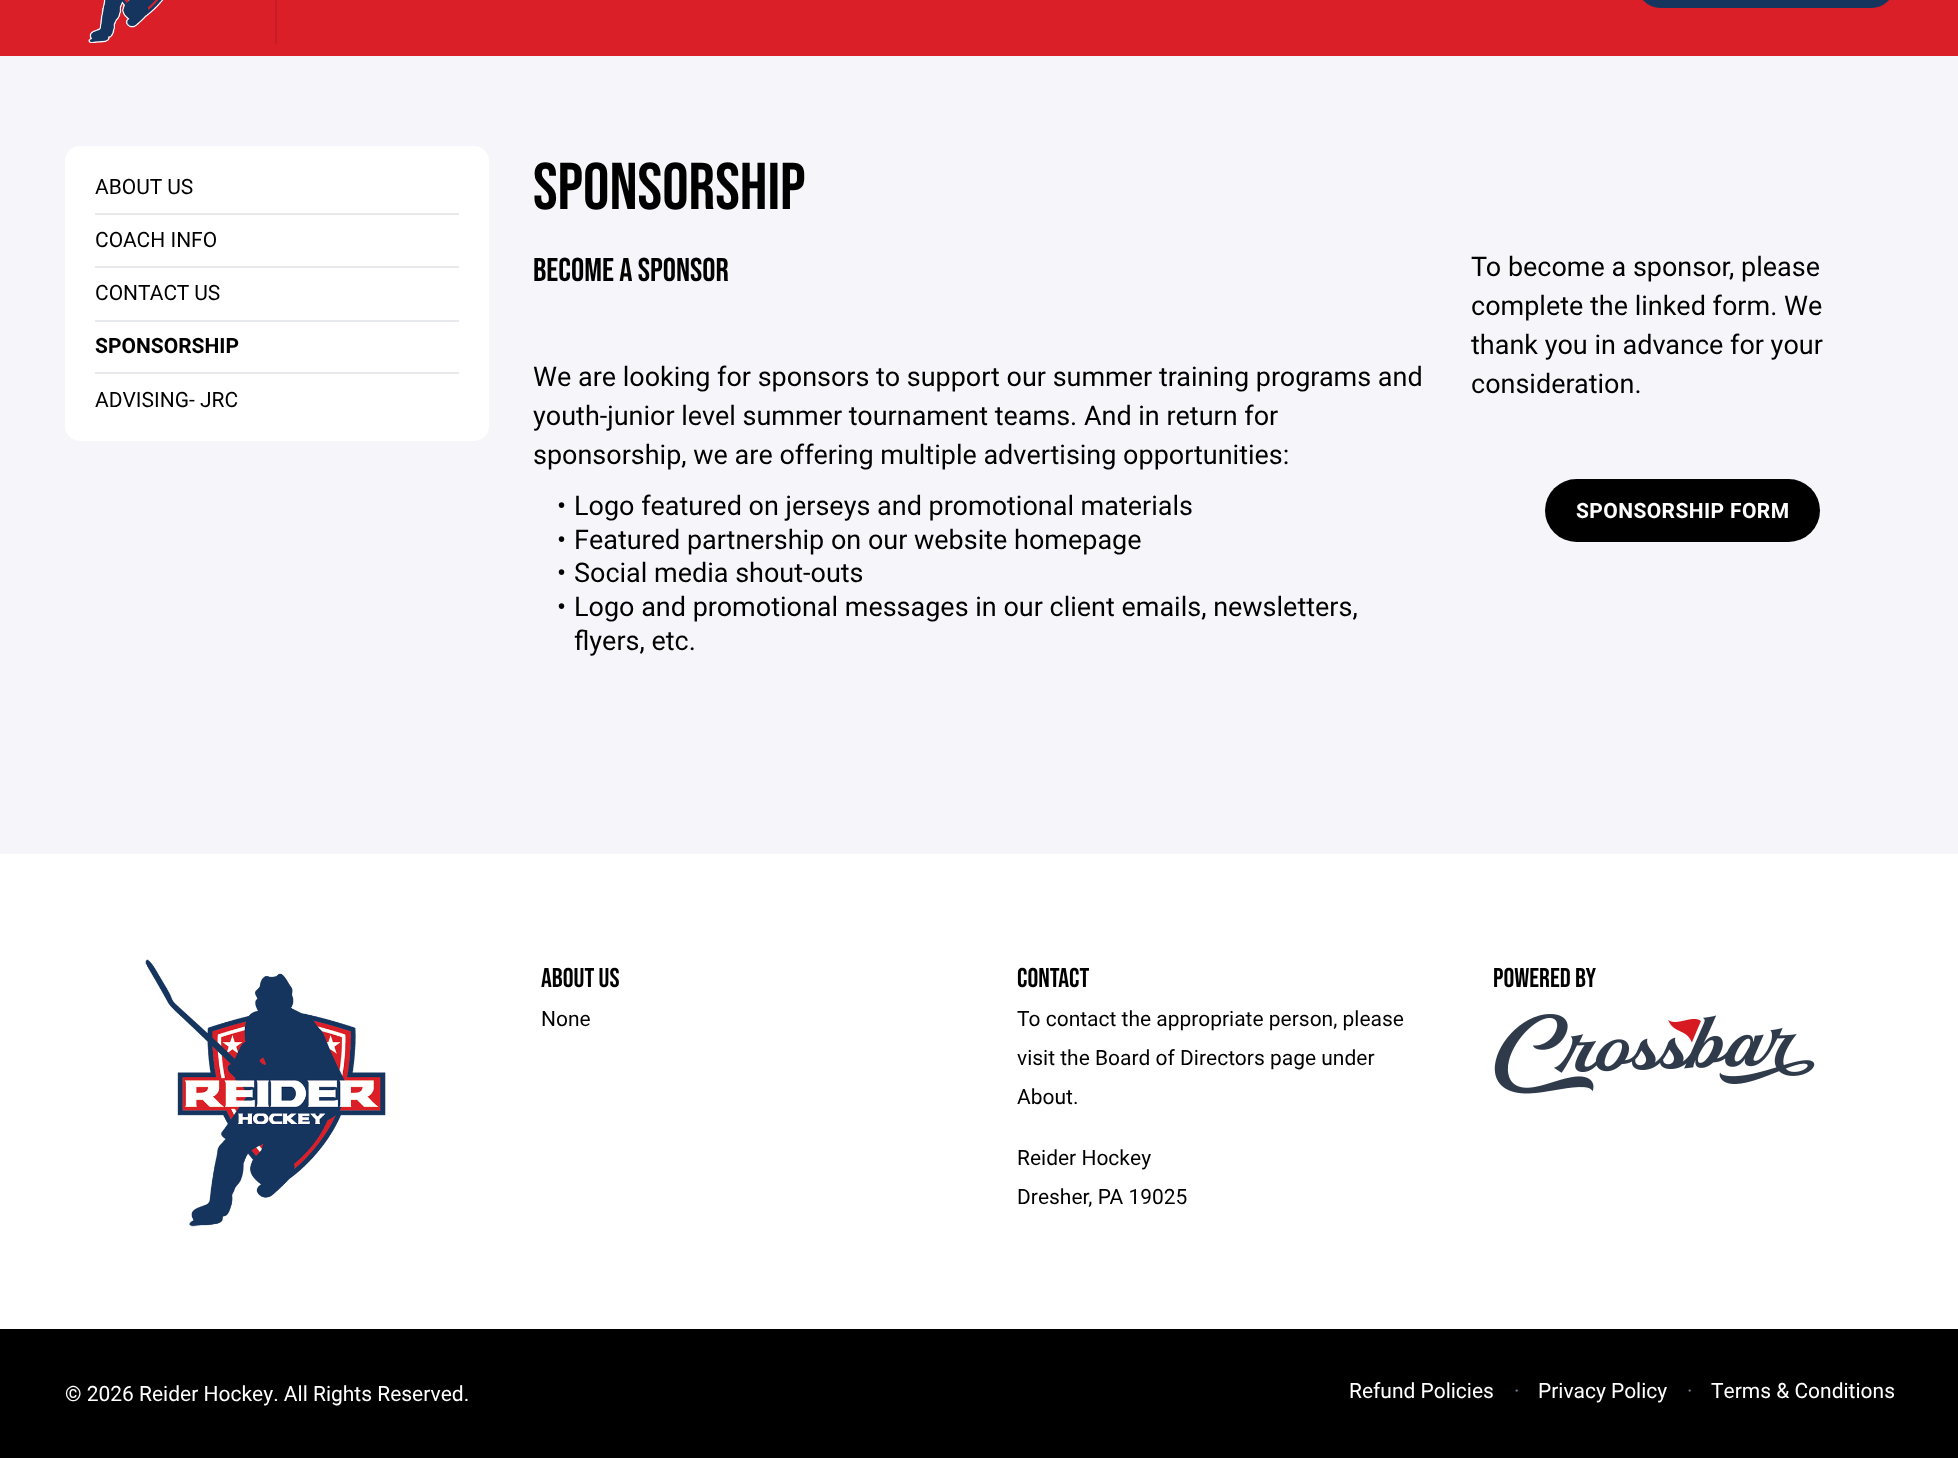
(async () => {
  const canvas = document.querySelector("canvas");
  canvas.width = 1958;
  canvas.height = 1458;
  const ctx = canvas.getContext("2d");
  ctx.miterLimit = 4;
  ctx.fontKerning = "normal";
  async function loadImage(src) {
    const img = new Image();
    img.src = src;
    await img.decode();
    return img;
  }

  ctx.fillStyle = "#f6f5fa";
  ctx.fillRect(0, 0, 1958, 1458);
  ctx.fillStyle = "#db1f29";
  ctx.fillRect(0, 0, 1958, 56);
  ctx.fillStyle = "#15355f";
  ctx.beginPath();
  ctx.roundRect(1637, -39, 258, 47, 39);
  ctx.fill();
  ctx.fillStyle = "#c51c25";
  ctx.fillRect(275, 0, 2, 44);
  ctx.drawImage(await loadImage("img/1.png"), 88, 0, 76, 43);
  ctx.fillStyle = "#ffffff";
  ctx.beginPath();
  ctx.roundRect(65, 146, 424, 295, 15);
  ctx.fill();
  for (const [x, y, w, h, color] of [
    [95, 213, 364, 2, "#e7e9ed"],
    [95, 266, 364, 2, "#e7e9ed"],
    [95, 320, 364, 2, "#e7e9ed"],
    [95, 372, 364, 2, "#e7e9ed"],
  ]) {
    ctx.fillStyle = color;
    ctx.fillRect(x, y, w, h);
  }
  ctx.fillStyle = "#000000";
  ctx.beginPath();
  ctx.roundRect(1545, 479, 275, 63, 31.5);
  ctx.fill();
  ctx.fillStyle = "#ffffff";
  ctx.fillRect(0, 854, 1958, 475);
  ctx.drawImage(await loadImage("img/2.png"), 145, 959, 241, 268);
  ctx.drawImage(await loadImage("img/3.png"), 1494, 1014, 321, 80);
  ctx.fillStyle = "#000000";
  ctx.fillRect(0, 1329, 1958, 129);
  ctx.font = "21px Roboto";
  for (const [text, x, y] of [
    ["ABOUT US", 95, 194],
    ["COACH INFO", 95, 247],
    ["CONTACT US", 95, 300],
  ]) {
    ctx.fillText(text, x, y);
  }
  ctx.font = "bold 21px Roboto";
  ctx.fillText("SPONSORSHIP", 95, 353);
  ctx.font = "21px Roboto";
  ctx.fillText("ADVISING- JRC", 95, 407);
  ctx.font = "66px Bebas Neue";
  ctx.fillText("SPONSORSHIP", 533, 209);
  ctx.font = "33px Bebas Neue";
  ctx.fillText("BECOME A SPONSOR", 533, 281);
  ctx.font = "27px Roboto";
  for (const [text, x, y] of [
    ["We are looking for sponsors to support our summer training programs and", 533, 386],
    ["youth-junior level summer tournament teams. And in return for", 533, 425],
    ["sponsorship, we are offering multiple advertising opportunities:", 533, 464],
    ["•", 557, 515],
    ["Logo featured on jerseys and promotional materials", 574, 515],
    ["•", 557, 549],
    ["Featured partnership on our website homepage", 574, 549],
    ["•", 557, 582],
    ["Social media shout-outs", 574, 582],
    ["•", 557, 616],
    ["Logo and promotional messages in our client emails, newsletters,", 574, 616],
    ["flyers, etc.", 574, 650],
    ["To become a sponsor, please", 1471, 276],
    ["complete the linked form. We", 1471, 315],
    ["thank you in advance for your", 1471, 354],
    ["consideration.", 1471, 393],
  ]) {
    ctx.fillText(text, x, y);
  }
  ctx.letterSpacing = "0.4px";
  ctx.font = "bold 21px Roboto";
  ctx.fillStyle = "#ffffff";
  ctx.fillText("SPONSORSHIP FORM", 1576, 518);
  ctx.letterSpacing = "0px";
  ctx.font = "27px Bebas Neue";
  ctx.fillStyle = "#000000";
  ctx.fillText("ABOUT US", 541, 987);
  ctx.font = "21px Roboto";
  ctx.fillText("None", 541, 1026);
  ctx.font = "27px Bebas Neue";
  ctx.fillText("CONTACT", 1017, 987);
  ctx.font = "21px Roboto";
  for (const [text, x, y] of [
    ["To contact the appropriate person, please", 1017, 1026],
    ["visit the Board of Directors page under", 1017, 1065],
    ["About.", 1017, 1104],
    ["Reider Hockey", 1017, 1165],
    ["Dresher, PA 19025", 1017, 1204],
  ]) {
    ctx.fillText(text, x, y);
  }
  ctx.font = "27px Bebas Neue";
  ctx.fillText("POWERED BY", 1493, 987);
  ctx.font = "21px Roboto";
  ctx.fillStyle = "#ffffff";
  ctx.fillText("© 2026 Reider Hockey. All Rights Reserved.", 65, 1401);
  ctx.fillText("Refund Policies", 1349, 1398);
  ctx.fillStyle = "#707e8c";
  ctx.fillText("·", 1514, 1398);
  ctx.fillStyle = "#ffffff";
  ctx.fillText("Privacy Policy", 1538, 1398);
  ctx.fillStyle = "#707e8c";
  ctx.fillText("·", 1687, 1398);
  ctx.fillStyle = "#ffffff";
  ctx.fillText("Terms & Conditions", 1711, 1398);
})();
